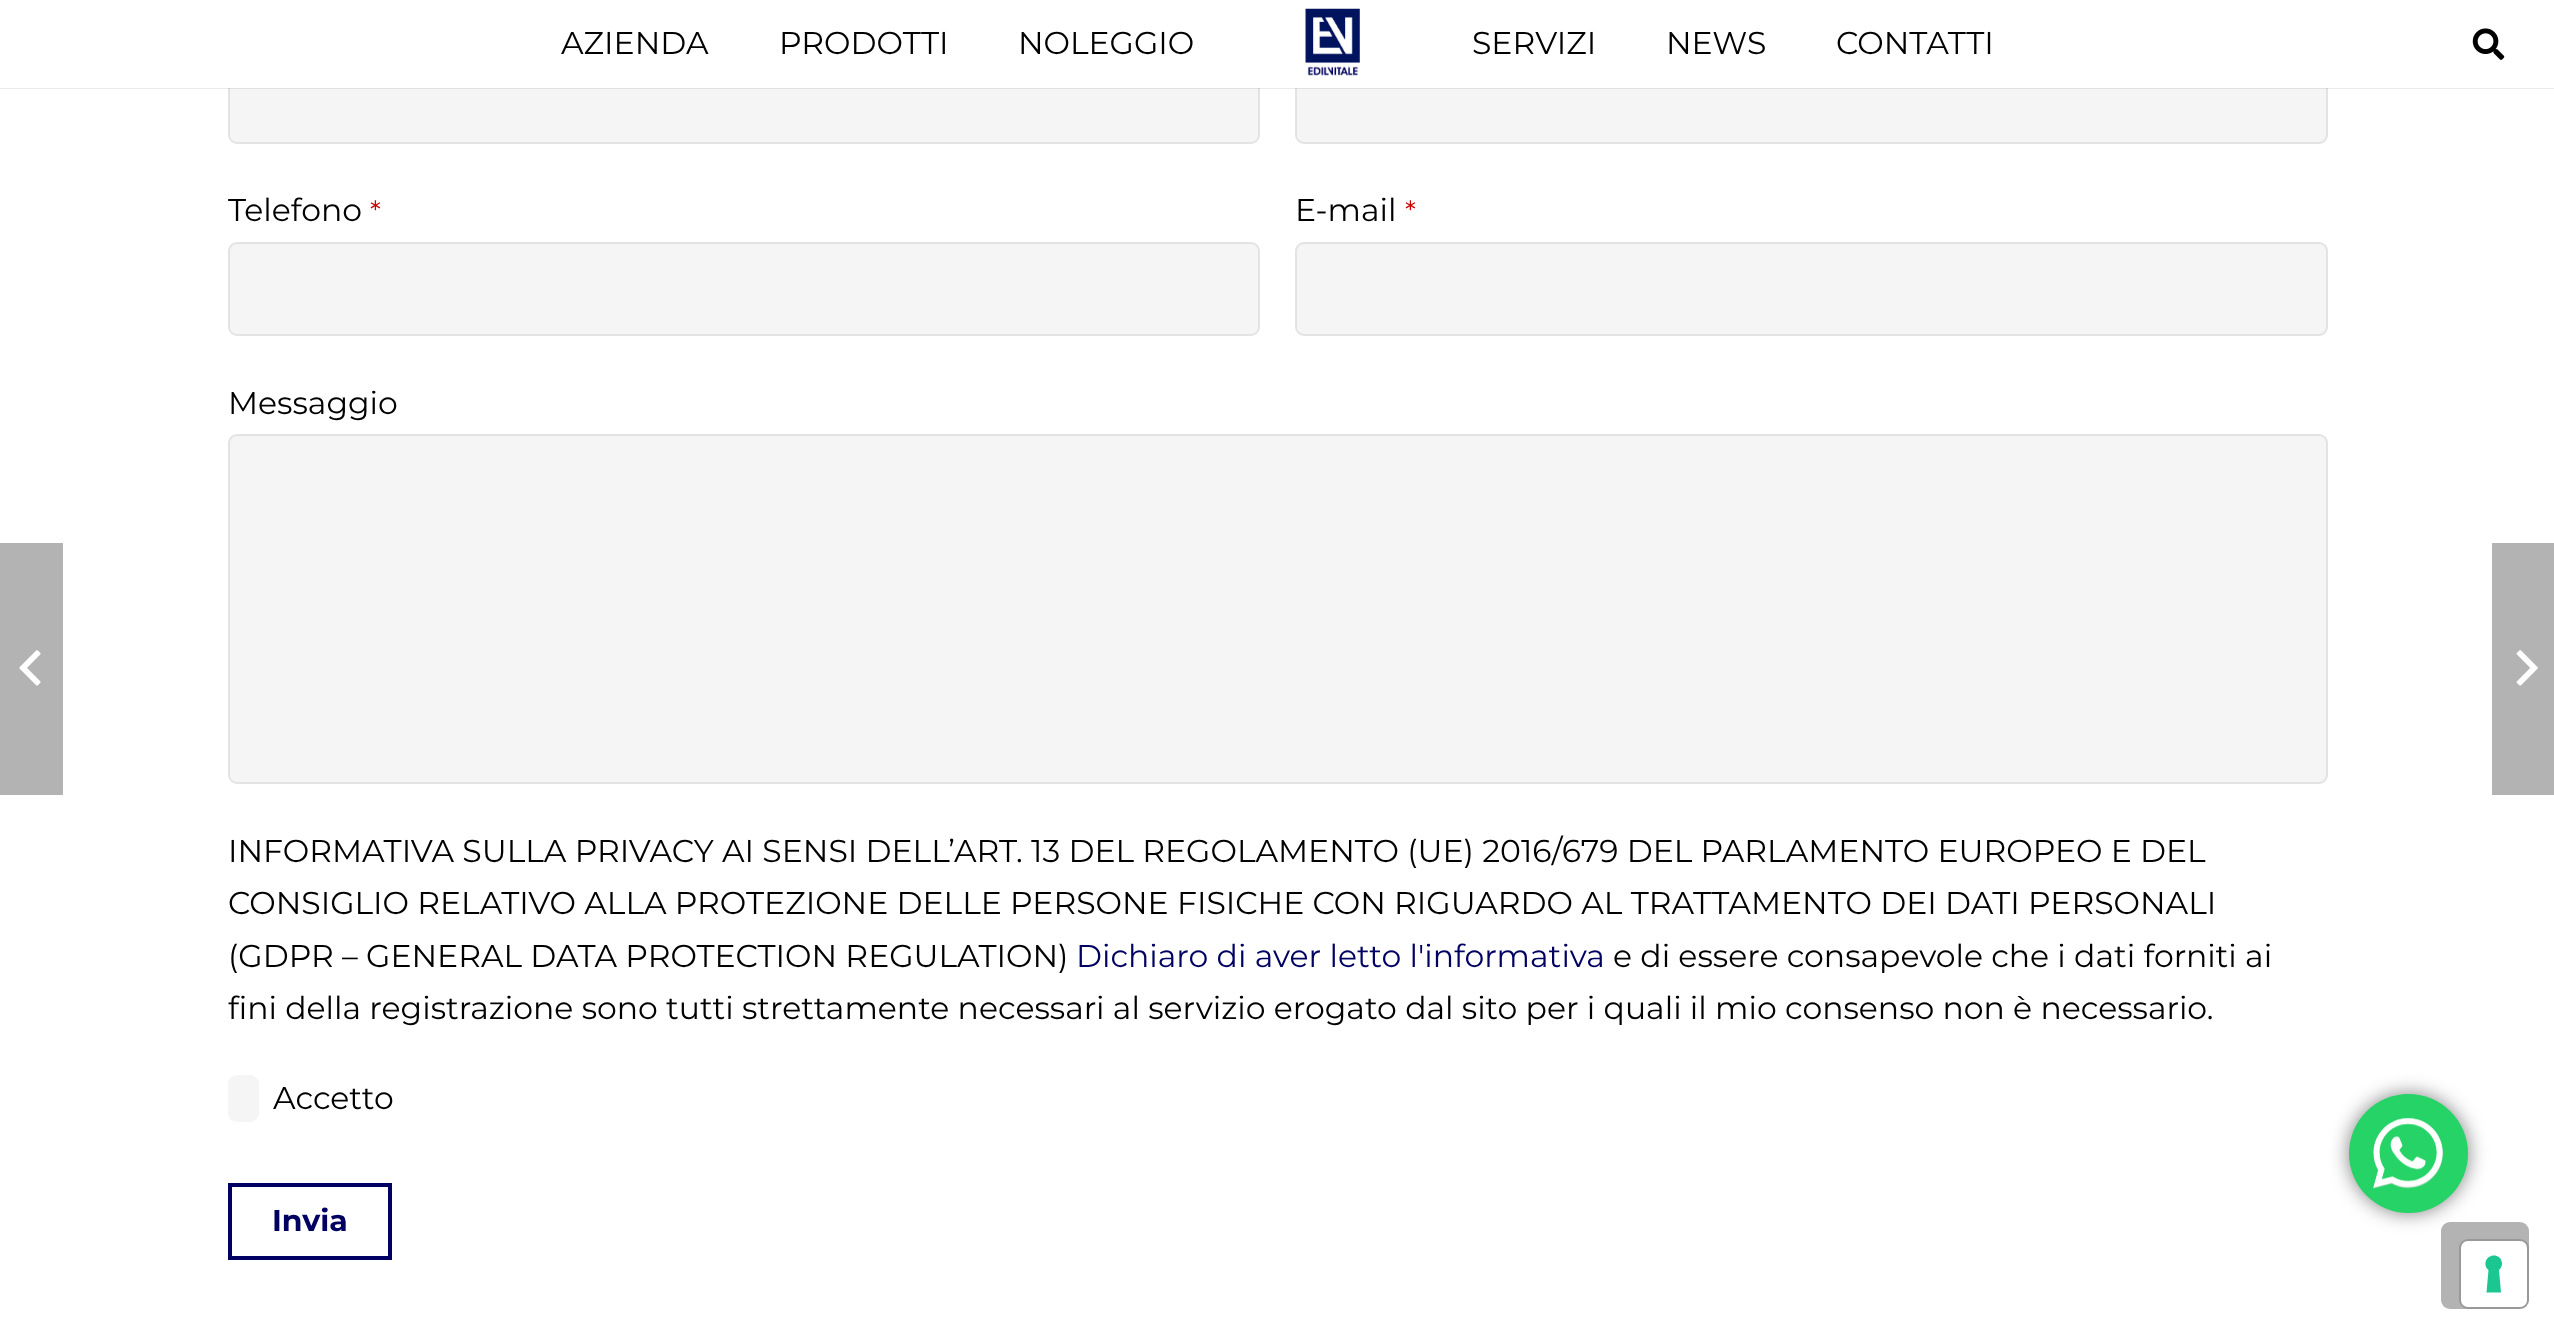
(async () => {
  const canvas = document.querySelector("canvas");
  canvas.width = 2554;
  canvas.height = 1335;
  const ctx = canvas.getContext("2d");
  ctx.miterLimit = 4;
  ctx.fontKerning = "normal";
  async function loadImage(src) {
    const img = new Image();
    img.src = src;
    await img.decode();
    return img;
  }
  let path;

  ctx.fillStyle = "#ffffff";
  ctx.fillRect(0, 0, 2554, 1335);
  ctx.fillStyle = "#f5f5f5";
  ctx.beginPath();
  ctx.roundRect(229, 50, 1030, 93, 8);
  ctx.fill();
  ctx.strokeStyle = "#e3e3e3";
  ctx.lineWidth = 2;
  ctx.stroke();
  ctx.beginPath();
  ctx.roundRect(1296, 50, 1031, 93, 8);
  ctx.fill();
  ctx.stroke();
  ctx.fillStyle = "rgba(0, 0, 0, 0.08)";
  ctx.fillRect(0, 88, 2554, 1);
  ctx.fillStyle = "#ffffff";
  ctx.fillRect(228, 49, 2100, 39);
  ctx.drawImage(await loadImage("img/1.png"), 1305, 8, 55, 68);
  ctx.drawImage(await loadImage("img/2.png"), 2472, 28, 33, 32);
  ctx.fillStyle = "#f5f5f5";
  ctx.beginPath();
  ctx.roundRect(229, 243, 1030, 92, 8);
  ctx.fill();
  ctx.stroke();
  ctx.beginPath();
  ctx.roundRect(1296, 243, 1031, 92, 8);
  ctx.fill();
  ctx.stroke();
  ctx.beginPath();
  ctx.roundRect(229, 435, 2098, 348, 8);
  ctx.fill();
  ctx.stroke();
  ctx.beginPath();
  ctx.roundRect(228, 1075, 31, 47, 9);
  ctx.fill();
  ctx.strokeStyle = "#000063";
  ctx.lineWidth = 4;
  ctx.strokeRect(230, 1185, 160, 73);
  ctx.fillStyle = "#b3b3b3";
  ctx.fillRect(0, 543, 63, 252);
  ctx.drawImage(await loadImage("img/3.png"), 19, 650, 22, 36);
  ctx.fillRect(2492, 543, 62, 252);
  ctx.drawImage(await loadImage("img/4.png"), 2516, 650, 22, 36);
  ctx.beginPath();
  ctx.roundRect(2441, 1222, 88, 87, 9);
  ctx.fill();
  ctx.fillStyle = "rgba(0, 0, 0, 0.5)";
  ctx.filter = "blur(9.5px)";
  ctx.beginPath();
  ctx.roundRect(2349, 1094, 119, 119, 59.5);
  ctx.fill();
  ctx.filter = "none";
  ctx.fillStyle = "#25d366";
  ctx.beginPath();
  ctx.arc(2408.5, 1153.5, 59.5, 0, Math.PI * 2);
  ctx.fill();
  ctx.drawImage(await loadImage("img/5.png"), 2373, 1118, 70, 71);
  ctx.beginPath();
  ctx.roundRect(2460, 1240, 68, 68, 8);
  ctx.strokeStyle = "rgba(0, 0, 0, 0.15)";
  ctx.lineWidth = 2;
  ctx.stroke();
  ctx.fillStyle = "#ffffff";
  ctx.beginPath();
  ctx.roundRect(2461, 1241, 66, 66, 7);
  ctx.fill();
  ctx.fillStyle = "#1cc691";
  path = new Path2D("M2494 1255.5C2501.5 1255.5 2505 1265 2499 1270L2501 1292.5H2486.5L2488.5 1270C2482.5 1265 2486 1255.5 2494 1255.5Z");
  ctx.fill(path, "evenodd");
  ctx.font = "31.5px Montserrat";
  ctx.fillStyle = "#000000";
  for (const [text, x, y] of [
    ["AZIENDA", 561, 54],
    ["PRODOTTI", 779, 54],
    ["NOLEGGIO", 1018, 54],
    ["SERVIZI", 1472, 54],
    ["NEWS", 1666, 54],
    ["CONTATTI", 1836, 54],
    ["Telefono", 228, 221],
  ]) {
    ctx.fillText(text, x, y);
  }
  ctx.font = "28px Montserrat";
  ctx.fillStyle = "#cc0101";
  ctx.fillText("*", 370, 221);
  ctx.font = "31.5px Montserrat";
  ctx.fillStyle = "#000000";
  ctx.fillText("E-mail", 1295, 221);
  ctx.font = "28px Montserrat";
  ctx.fillStyle = "#cc0101";
  ctx.fillText("*", 1405, 221);
  ctx.font = "31.5px Montserrat";
  ctx.fillStyle = "#000000";
  for (const [text, x, y] of [
    ["Messaggio", 228, 414],
    ["INFORMATIVA SULLA PRIVACY AI SENSI DELL’ART. 13 DEL REGOLAMENTO (UE) 2016/679 DEL PARLAMENTO EUROPEO E DEL", 228, 862],
    ["CONSIGLIO RELATIVO ALLA PROTEZIONE DELLE PERSONE FISICHE CON RIGUARDO AL TRATTAMENTO DEI DATI PERSONALI", 228, 914],
    ["(GDPR – GENERAL DATA PROTECTION REGULATION)", 228, 967],
  ]) {
    ctx.fillText(text, x, y);
  }
  ctx.fillStyle = "#000063";
  ctx.fillText("Dichiaro di aver letto l'informativa", 1076, 967);
  ctx.fillStyle = "#000000";
  for (const [text, x, y] of [
    ["e di essere consapevole che i dati forniti ai", 1613, 967],
    ["fini della registrazione sono tutti strettamente necessari al servizio erogato dal sito per i quali il mio consenso non è necessario.", 228, 1019],
    ["Accetto", 273, 1109],
  ]) {
    ctx.fillText(text, x, y);
  }
  ctx.font = "bold 30px Montserrat";
  ctx.fillStyle = "#000063";
  ctx.fillText("Invia", 272, 1231);
})();
